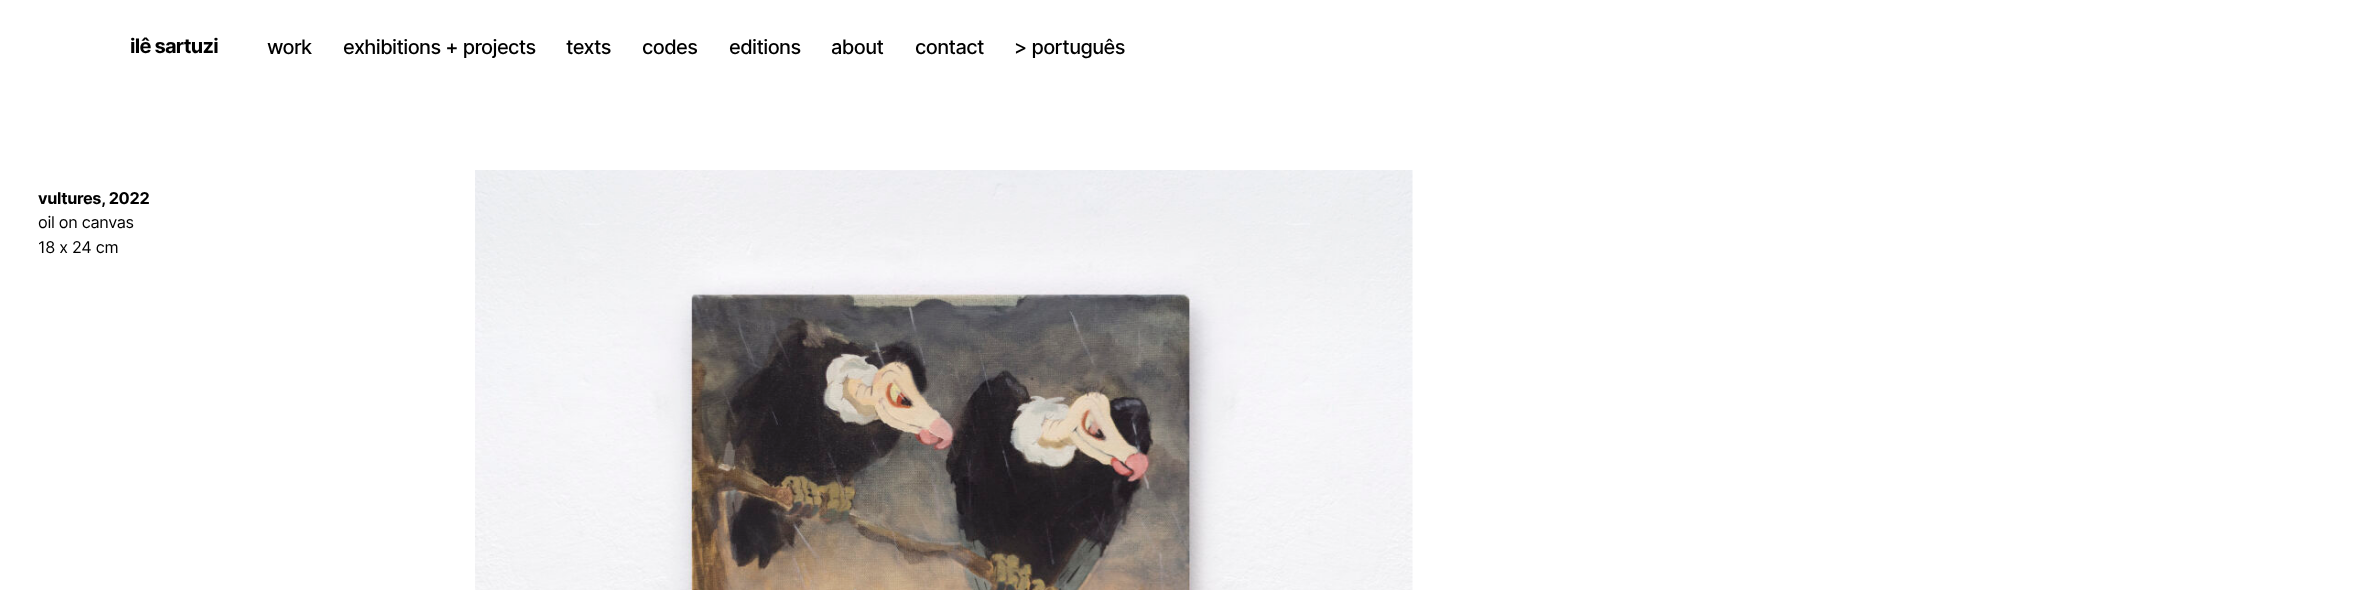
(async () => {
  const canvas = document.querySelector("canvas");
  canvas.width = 2360;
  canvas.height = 590;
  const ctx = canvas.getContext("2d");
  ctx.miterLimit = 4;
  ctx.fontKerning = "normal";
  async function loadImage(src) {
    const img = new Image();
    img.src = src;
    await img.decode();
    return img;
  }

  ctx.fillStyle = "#ffffff";
  ctx.fillRect(0, 0, 2360, 590);
  ctx.drawImage(await loadImage("img/1.png"), 475, 170, 938, 420);
  ctx.letterSpacing = "-0.75px";
  ctx.font = "bold 20px Inter";
  ctx.fillStyle = "#000000";
  ctx.fillText("ilê sartuzi", 130, 53);
  ctx.letterSpacing = "-0.6px";
  ctx.font = "500 20px Inter";
  for (const [text, x, y] of [
    ["work", 267, 54],
    ["exhibitions + projects", 343, 54],
    ["texts", 566, 54],
    ["codes", 642, 54],
    ["editions", 729, 54],
    ["about", 831, 54],
    ["contact", 915, 54],
    ["> português", 1014, 54],
  ]) {
    ctx.fillText(text, x, y);
  }
  ctx.letterSpacing = "-0.3px";
  ctx.font = "bold 16.25px Inter";
  ctx.fillText("vultures, 2022", 38, 204);
  ctx.font = "16.25px Inter";
  ctx.fillText("oil on canvas", 38, 228);
  ctx.fillText("18 x 24 cm", 38, 253);
})();
